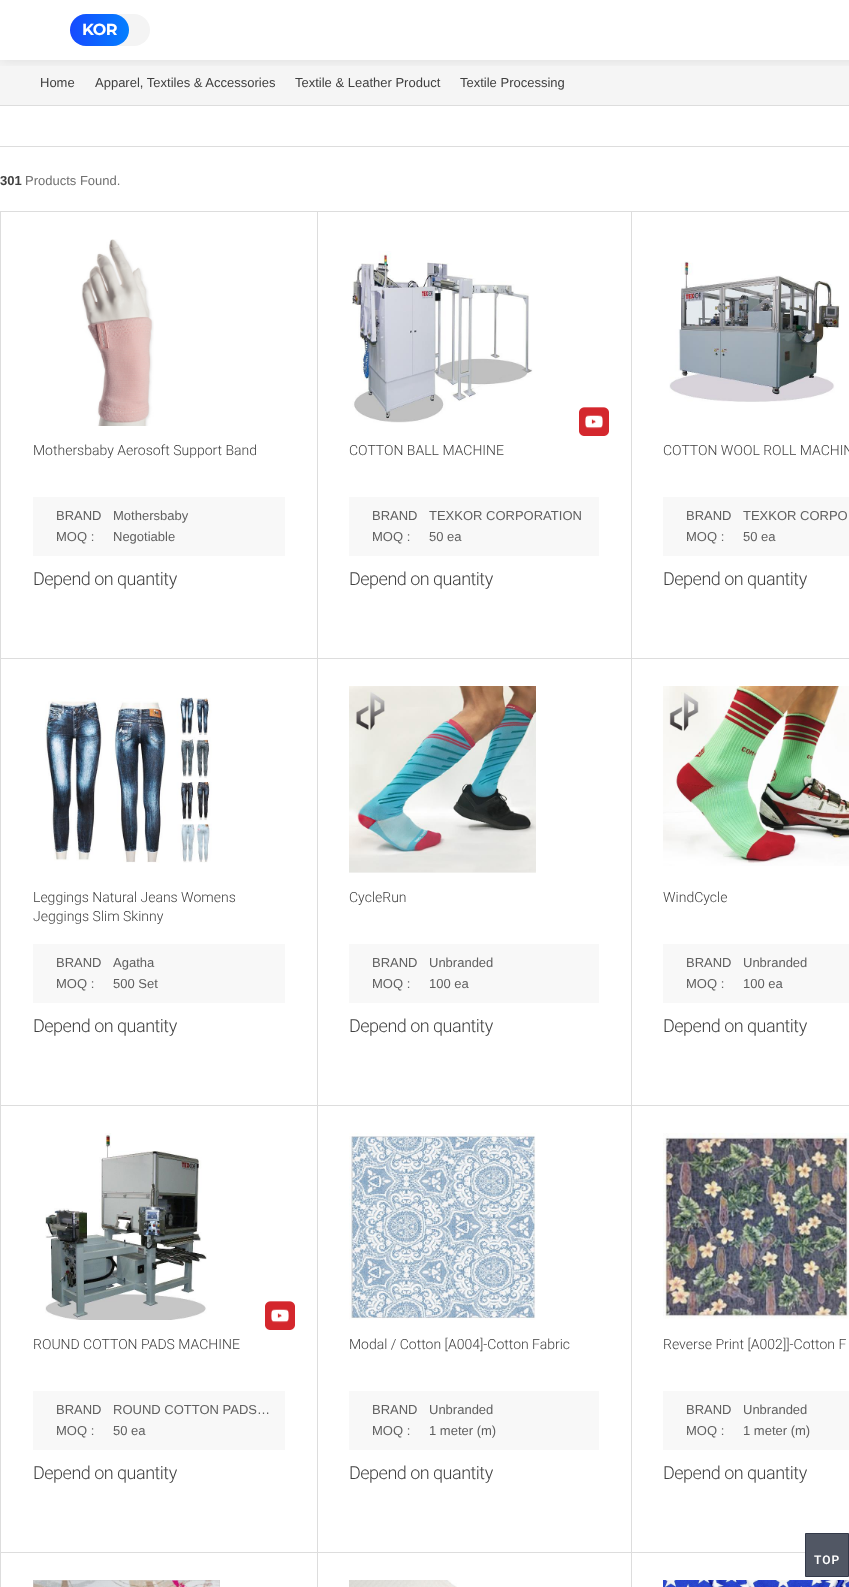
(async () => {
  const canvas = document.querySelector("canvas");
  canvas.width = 849;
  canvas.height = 1587;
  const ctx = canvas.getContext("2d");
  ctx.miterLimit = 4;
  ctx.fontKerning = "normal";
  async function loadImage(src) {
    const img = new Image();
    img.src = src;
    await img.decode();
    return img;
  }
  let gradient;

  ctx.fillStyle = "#ffffff";
  ctx.fillRect(0, 0, 849, 1587);
  ctx.fillStyle = "#f5f5f5";
  ctx.fillRect(0, 60, 849, 45);
  ctx.save();
  ctx.beginPath();
  ctx.rect(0, 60, 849, 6);
  ctx.clip();
  ctx.fillStyle = "rgba(0, 0, 0, 0.1)";
  ctx.filter = "blur(7px)";
  ctx.beginPath();
  ctx.rect(0, 0, 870, 60);
  ctx.fill();
  ctx.filter = "none";
  ctx.restore();
  ctx.fillStyle = "#f4f4f4";
  ctx.beginPath();
  ctx.roundRect(70, 14, 80, 32, 16);
  ctx.fill();
  gradient = ctx.createLinearGradient(70, 30, 129, 30);
  gradient.addColorStop(0, "#174aff");
  gradient.addColorStop(1, "#037fff");
  ctx.fillStyle = gradient;
  ctx.beginPath();
  ctx.roundRect(70, 14, 59, 32, 16);
  ctx.fill();
  ctx.fillStyle = "#dddddd";
  ctx.fillRect(0, 105, 849, 1);
  ctx.fillRect(0, 146, 849, 1);
  ctx.strokeStyle = "#dddddd";
  ctx.strokeRect(0.5, 211.5, 317, 447);
  ctx.drawImage(await loadImage("img/1.png"), 81, 239, 73, 187);
  ctx.fillStyle = "#f8f8f8";
  ctx.fillRect(33, 497, 252, 59);
  ctx.strokeRect(317.5, 211.5, 314, 447);
  ctx.drawImage(await loadImage("img/2.png"), 352, 251, 181, 172);
  ctx.drawImage(await loadImage("img/3.png"), 579, 407, 30, 29);
  ctx.fillRect(349, 497, 250, 59);
  ctx.strokeRect(631.5, 211.5, 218, 447);
  ctx.drawImage(await loadImage("img/4.png"), 669, 261, 171, 141);
  ctx.fillRect(663, 497, 186, 59);
  ctx.strokeRect(0.5, 658.5, 317, 447);
  ctx.drawImage(await loadImage("img/5.png"), 45, 697, 167, 166);
  ctx.fillRect(33, 944, 252, 59);
  ctx.strokeRect(317.5, 658.5, 314, 447);
  ctx.drawImage(await loadImage("img/6.png"), 349, 686, 187, 187);
  ctx.fillRect(349, 944, 250, 59);
  ctx.strokeRect(631.5, 658.5, 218, 447);
  ctx.drawImage(await loadImage("img/7.png"), 663, 686, 186, 180);
  ctx.fillRect(663, 944, 186, 59);
  ctx.strokeRect(0.5, 1105.5, 317, 447);
  ctx.drawImage(await loadImage("img/8.png"), 45, 1133, 162, 187);
  ctx.drawImage(await loadImage("img/3.png"), 265, 1301, 30, 29);
  ctx.fillRect(33, 1391, 252, 59);
  ctx.strokeRect(317.5, 1105.5, 314, 447);
  ctx.drawImage(await loadImage("img/9.png"), 349, 1133, 187, 187);
  ctx.fillRect(349, 1391, 250, 59);
  ctx.strokeRect(631.5, 1105.5, 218, 447);
  ctx.drawImage(await loadImage("img/10.png"), 663, 1133, 186, 186);
  ctx.fillRect(663, 1391, 186, 59);
  ctx.strokeRect(0.5, 1552.5, 317, 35);
  ctx.drawImage(await loadImage("img/11.png"), 33, 1580, 187, 7);
  ctx.strokeRect(317.5, 1552.5, 314, 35);
  ctx.drawImage(await loadImage("img/12.png"), 349, 1580, 108, 7);
  ctx.drawImage(await loadImage("img/13.png"), 663, 1580, 186, 7);
  ctx.fillStyle = "#515764";
  ctx.beginPath();
  ctx.rect(805.5, 1533.5, 43, 43);
  ctx.fill();
  ctx.strokeStyle = "#333949";
  ctx.stroke();
  ctx.letterSpacing = "-0.5px";
  ctx.font = "bold 16px Montserrat";
  ctx.fillStyle = "#ffffff";
  ctx.fillText("KOR", 82, 35);
  ctx.letterSpacing = "0px";
  ctx.font = "13px Liberation Sans";
  ctx.fillStyle = "#404040";
  for (const [text, x, y] of [
    ["Home", 40, 87],
    ["Apparel, Textiles & Accessories", 95, 87],
    ["Textile & Leather Product", 295, 87],
    ["Textile Processing", 460, 87],
  ]) {
    ctx.fillText(text, x, y);
  }
  ctx.font = "bold 13px Liberation Sans";
  ctx.fillText("301", 0, 185);
  ctx.font = "13px Liberation Sans";
  ctx.fillStyle = "#707070";
  ctx.fillText("Products Found.", 25, 185);
  ctx.font = "300 14px Roboto";
  ctx.fillStyle = "#404040";
  ctx.fillText("Mothersbaby Aerosoft Support Band", 33, 455);
  ctx.font = "13px Liberation Sans";
  ctx.fillStyle = "#606060";
  for (const [text, x, y] of [
    ["BRAND", 56, 520],
    [":", 56, 539],
    ["Mothersbaby", 113, 520],
    ["MOQ :", 56, 541],
    ["Negotiable", 113, 541],
  ]) {
    ctx.fillText(text, x, y);
  }
  ctx.letterSpacing = "-0.5px";
  ctx.font = "300 18px Roboto";
  ctx.fillStyle = "#404040";
  ctx.fillText("Depend on quantity", 33, 585);
  ctx.letterSpacing = "0px";
  ctx.font = "300 14px Roboto";
  ctx.fillText("COTTON BALL MACHINE", 349, 455);
  ctx.font = "13px Liberation Sans";
  ctx.fillStyle = "#606060";
  for (const [text, x, y] of [
    ["BRAND", 372, 520],
    [":", 372, 539],
    ["TEXKOR CORPORATION", 429, 520],
    ["MOQ :", 372, 541],
    ["50 ea", 429, 541],
  ]) {
    ctx.fillText(text, x, y);
  }
  ctx.letterSpacing = "-0.5px";
  ctx.font = "300 18px Roboto";
  ctx.fillStyle = "#404040";
  ctx.fillText("Depend on quantity", 349, 585);
  ctx.letterSpacing = "0px";
  ctx.font = "300 14px Roboto";
  ctx.fillText("COTTON WOOL ROLL MACHIN", 663, 455);
  ctx.font = "13px Liberation Sans";
  ctx.fillStyle = "#606060";
  for (const [text, x, y] of [
    ["BRAND", 686, 520],
    [":", 686, 539],
    ["TEXKOR CORPO", 743, 520],
    ["MOQ :", 686, 541],
    ["50 ea", 743, 541],
  ]) {
    ctx.fillText(text, x, y);
  }
  ctx.letterSpacing = "-0.5px";
  ctx.font = "300 18px Roboto";
  ctx.fillStyle = "#404040";
  ctx.fillText("Depend on quantity", 663, 585);
  ctx.letterSpacing = "0px";
  ctx.font = "300 14px Roboto";
  ctx.fillText("Leggings Natural Jeans Womens", 33, 902);
  ctx.fillText("Jeggings Slim Skinny", 33, 921);
  ctx.font = "13px Liberation Sans";
  ctx.fillStyle = "#606060";
  for (const [text, x, y] of [
    ["BRAND", 56, 967],
    [":", 56, 986],
    ["Agatha", 113, 967],
    ["MOQ :", 56, 988],
    ["500 Set", 113, 988],
  ]) {
    ctx.fillText(text, x, y);
  }
  ctx.letterSpacing = "-0.5px";
  ctx.font = "300 18px Roboto";
  ctx.fillStyle = "#404040";
  ctx.fillText("Depend on quantity", 33, 1032);
  ctx.letterSpacing = "0px";
  ctx.font = "300 14px Roboto";
  ctx.fillText("CycleRun", 349, 902);
  ctx.font = "13px Liberation Sans";
  ctx.fillStyle = "#606060";
  for (const [text, x, y] of [
    ["BRAND", 372, 967],
    [":", 372, 986],
    ["Unbranded", 429, 967],
    ["MOQ :", 372, 988],
    ["100 ea", 429, 988],
  ]) {
    ctx.fillText(text, x, y);
  }
  ctx.letterSpacing = "-0.5px";
  ctx.font = "300 18px Roboto";
  ctx.fillStyle = "#404040";
  ctx.fillText("Depend on quantity", 349, 1032);
  ctx.letterSpacing = "0px";
  ctx.font = "300 14px Roboto";
  ctx.fillText("WindCycle", 663, 902);
  ctx.font = "13px Liberation Sans";
  ctx.fillStyle = "#606060";
  for (const [text, x, y] of [
    ["BRAND", 686, 967],
    [":", 686, 986],
    ["Unbranded", 743, 967],
    ["MOQ :", 686, 988],
    ["100 ea", 743, 988],
  ]) {
    ctx.fillText(text, x, y);
  }
  ctx.letterSpacing = "-0.5px";
  ctx.font = "300 18px Roboto";
  ctx.fillStyle = "#404040";
  ctx.fillText("Depend on quantity", 663, 1032);
  ctx.letterSpacing = "0px";
  ctx.font = "300 14px Roboto";
  ctx.fillText("ROUND COTTON PADS MACHINE", 33, 1349);
  ctx.font = "13px Liberation Sans";
  ctx.fillStyle = "#606060";
  for (const [text, x, y] of [
    ["BRAND", 56, 1414],
    [":", 56, 1433],
    ["ROUND COTTON PADS…", 113, 1414],
    ["MOQ :", 56, 1435],
    ["50 ea", 113, 1435],
  ]) {
    ctx.fillText(text, x, y);
  }
  ctx.letterSpacing = "-0.5px";
  ctx.font = "300 18px Roboto";
  ctx.fillStyle = "#404040";
  ctx.fillText("Depend on quantity", 33, 1479);
  ctx.letterSpacing = "0px";
  ctx.font = "300 14px Roboto";
  ctx.fillText("Modal / Cotton [A004]-Cotton Fabric", 349, 1349);
  ctx.font = "13px Liberation Sans";
  ctx.fillStyle = "#606060";
  for (const [text, x, y] of [
    ["BRAND", 372, 1414],
    [":", 372, 1433],
    ["Unbranded", 429, 1414],
    ["MOQ :", 372, 1435],
    ["1 meter (m)", 429, 1435],
  ]) {
    ctx.fillText(text, x, y);
  }
  ctx.letterSpacing = "-0.5px";
  ctx.font = "300 18px Roboto";
  ctx.fillStyle = "#404040";
  ctx.fillText("Depend on quantity", 349, 1479);
  ctx.letterSpacing = "0px";
  ctx.font = "300 14px Roboto";
  ctx.fillText("Reverse Print [A002]]-Cotton F", 663, 1349);
  ctx.font = "13px Liberation Sans";
  ctx.fillStyle = "#606060";
  for (const [text, x, y] of [
    ["BRAND", 686, 1414],
    [":", 686, 1433],
    ["Unbranded", 743, 1414],
    ["MOQ :", 686, 1435],
    ["1 meter (m)", 743, 1435],
  ]) {
    ctx.fillText(text, x, y);
  }
  ctx.letterSpacing = "-0.5px";
  ctx.font = "300 18px Roboto";
  ctx.fillStyle = "#404040";
  ctx.fillText("Depend on quantity", 663, 1479);
  ctx.letterSpacing = "1px";
  ctx.font = "600 12px Roboto";
  ctx.fillStyle = "#ffffff";
  ctx.fillText("TOP", 814, 1564);
})();
